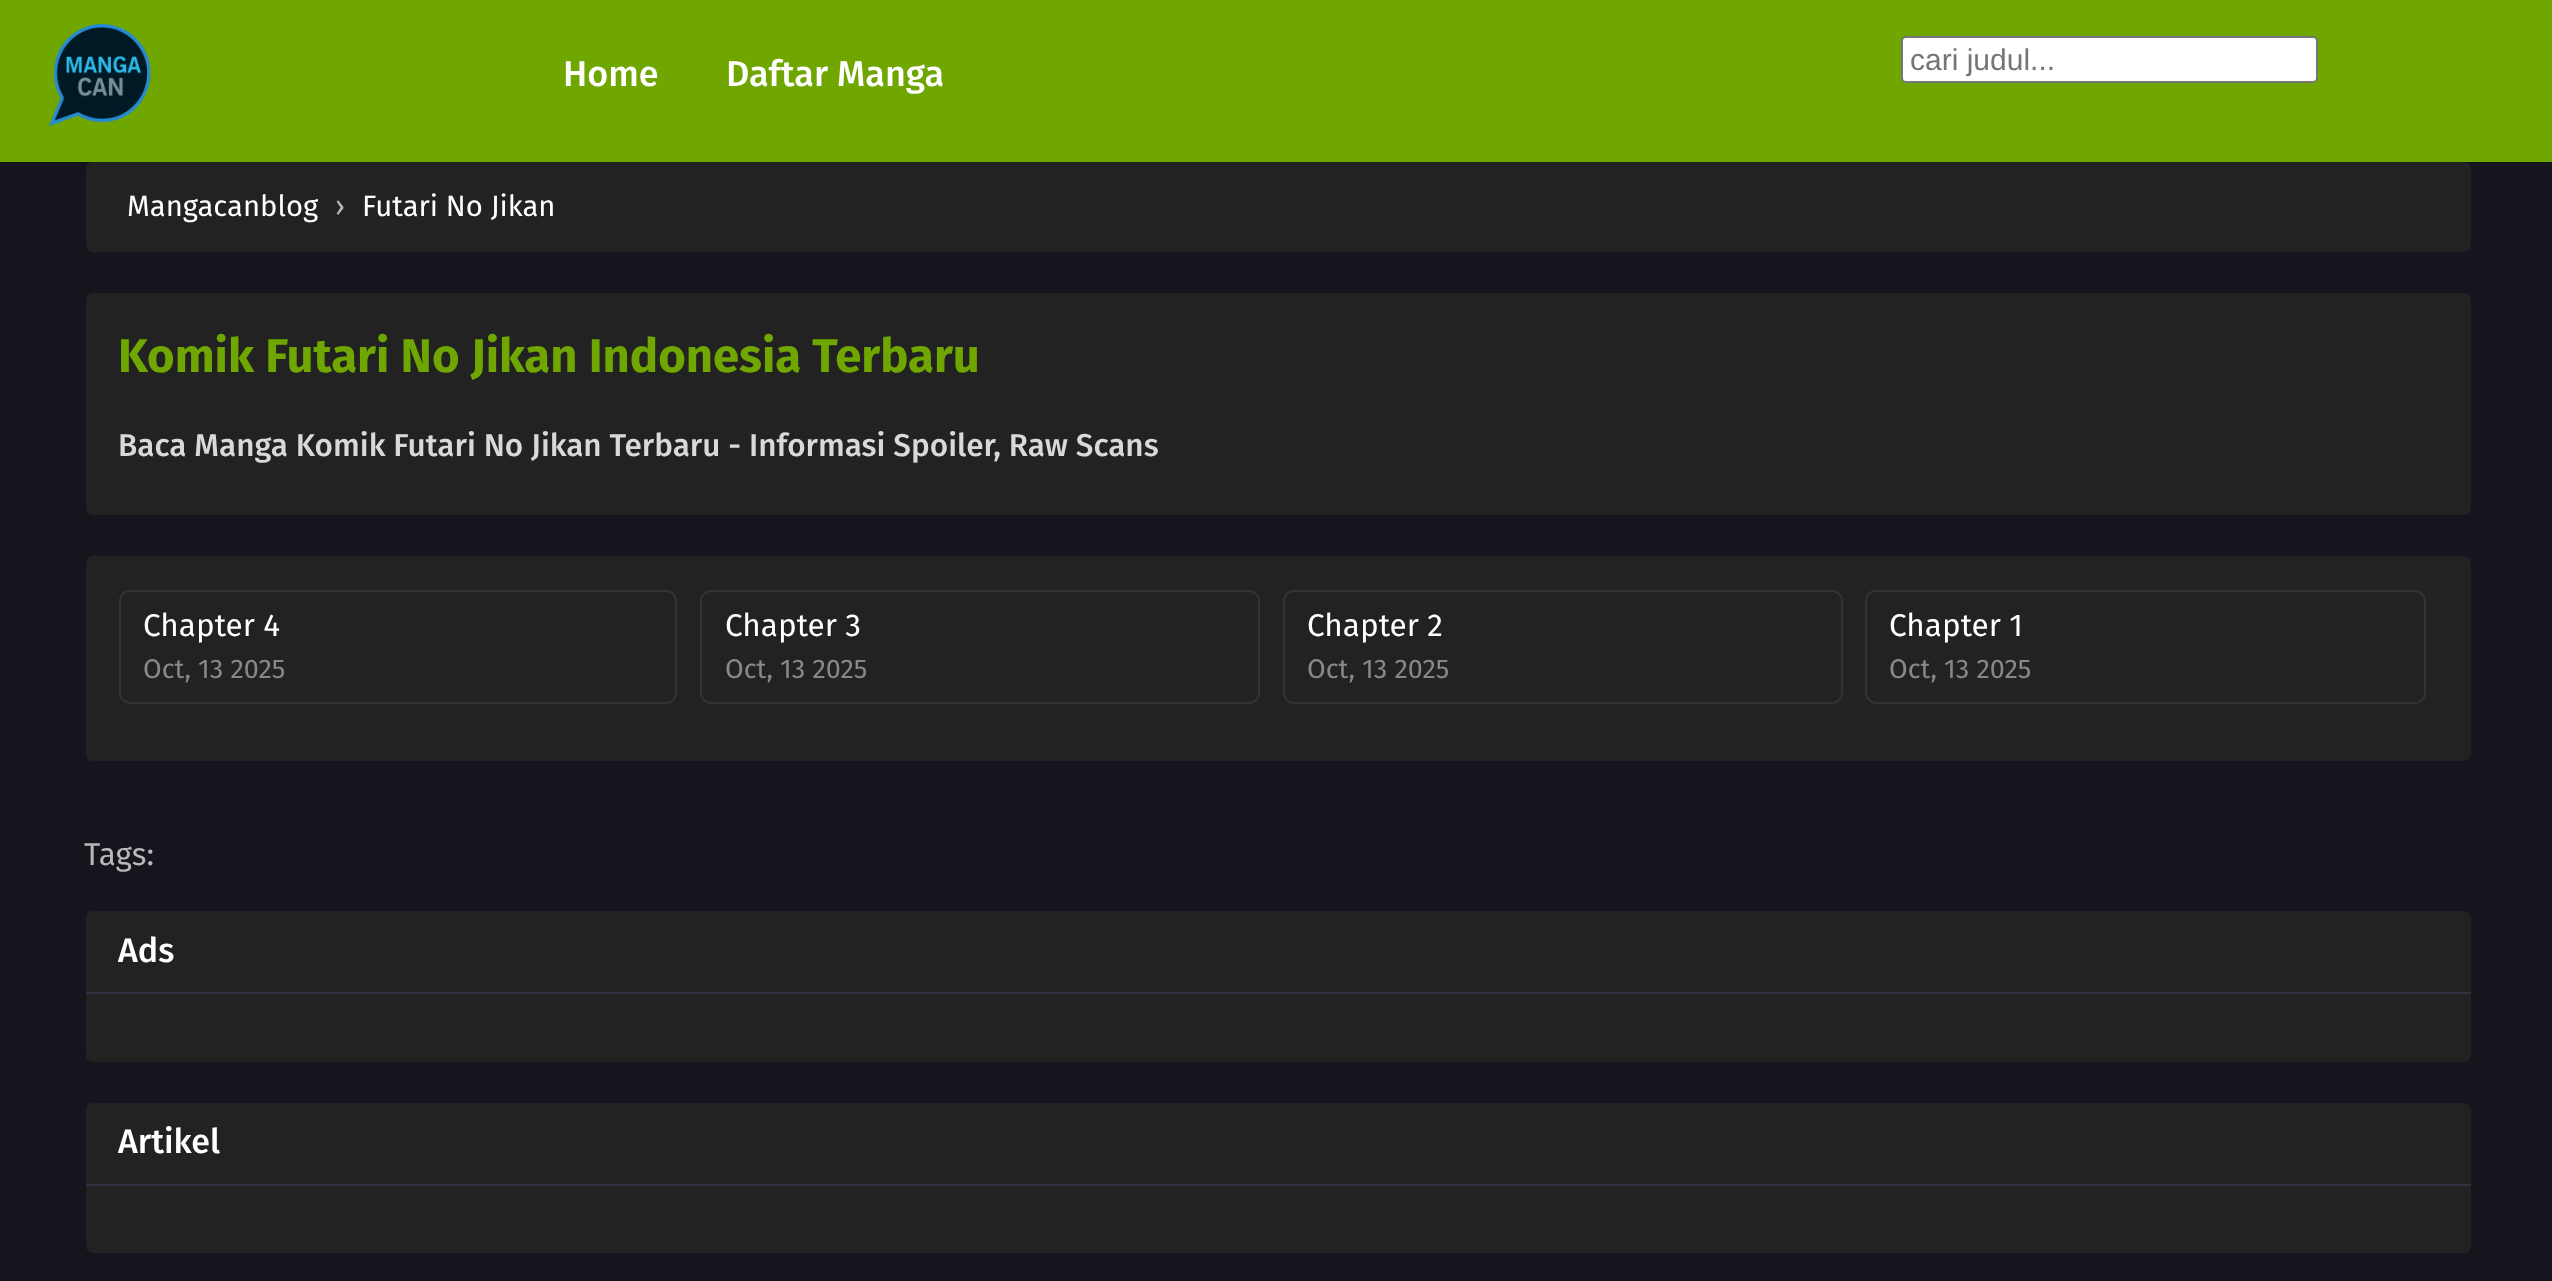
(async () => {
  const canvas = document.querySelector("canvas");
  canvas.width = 2552;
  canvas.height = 1281;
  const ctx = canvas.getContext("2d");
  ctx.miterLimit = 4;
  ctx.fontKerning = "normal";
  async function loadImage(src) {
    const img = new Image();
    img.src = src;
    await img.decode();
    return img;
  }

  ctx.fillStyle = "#16151d";
  ctx.fillRect(0, 0, 2552, 1281);
  ctx.fillStyle = "#70a600";
  ctx.fillRect(0, 0, 2552, 162);
  ctx.drawImage(await loadImage("img/1.png"), 48, 23, 103, 104);
  ctx.fillStyle = "#ffffff";
  ctx.beginPath();
  ctx.roundRect(1902, 37, 415, 45, 4);
  ctx.fill();
  ctx.strokeStyle = "#767676";
  ctx.lineWidth = 2;
  ctx.stroke();
  ctx.fillStyle = "#222222";
  ctx.beginPath();
  ctx.roundRect(86, 162, 2385, 90, 7);
  ctx.fill();
  ctx.beginPath();
  ctx.roundRect(86, 293, 2385, 222, 7);
  ctx.fill();
  ctx.beginPath();
  ctx.roundRect(86, 556, 2385, 205, 7);
  ctx.fill();
  ctx.beginPath();
  ctx.roundRect(120, 591, 556, 112, 10);
  ctx.strokeStyle = "#333333";
  ctx.stroke();
  ctx.beginPath();
  ctx.roundRect(701, 591, 558, 112, 10);
  ctx.stroke();
  ctx.beginPath();
  ctx.roundRect(1284, 591, 558, 112, 10);
  ctx.stroke();
  ctx.beginPath();
  ctx.roundRect(1866, 591, 559, 112, 10);
  ctx.stroke();
  ctx.beginPath();
  ctx.roundRect(86, 911, 2385, 151, 7);
  ctx.fill();
  ctx.fillStyle = "#312f40";
  ctx.fillRect(86, 992, 2385, 2);
  ctx.fillStyle = "#222222";
  ctx.beginPath();
  ctx.roundRect(86, 1103, 2385, 150, 7);
  ctx.fill();
  ctx.fillStyle = "#312f40";
  ctx.fillRect(86, 1184, 2385, 2);
  ctx.font = "500 36px Fira Sans";
  ctx.fillStyle = "#ffffff";
  ctx.fillText("Home", 563, 86);
  ctx.fillText("Daftar Manga", 726, 86);
  ctx.font = "30px Liberation Sans";
  ctx.fillStyle = "#757575";
  ctx.fillText("cari judul...", 1910, 70);
  ctx.font = "29.25px Fira Sans";
  ctx.fillStyle = "#ffffff";
  ctx.fillText("Mangacanblog", 127, 216);
  ctx.fillStyle = "#b8b8b8";
  ctx.fillText("›", 335, 216);
  ctx.fillStyle = "#ffffff";
  ctx.fillText("Futari No Jikan", 362, 216);
  ctx.font = "bold 47.25px Fira Sans";
  ctx.fillStyle = "#70a600";
  ctx.fillText("Komik Futari No Jikan Indonesia Terbaru", 118, 372);
  ctx.font = "500 31.5px Fira Sans";
  ctx.fillStyle = "#d9d9d9";
  ctx.fillText("Baca Manga Komik Futari No Jikan Terbaru - Informasi Spoiler, Raw Scans", 118, 456);
  ctx.font = "31.5px Fira Sans";
  ctx.fillStyle = "#ffffff";
  ctx.fillText("Chapter 4", 143, 636);
  ctx.font = "27px Fira Sans";
  ctx.fillStyle = "#888888";
  ctx.fillText("Oct, 13 2025", 143, 678);
  ctx.font = "31.5px Fira Sans";
  ctx.fillStyle = "#ffffff";
  ctx.fillText("Chapter 3", 725, 636);
  ctx.font = "27px Fira Sans";
  ctx.fillStyle = "#888888";
  ctx.fillText("Oct, 13 2025", 725, 678);
  ctx.font = "31.5px Fira Sans";
  ctx.fillStyle = "#ffffff";
  ctx.fillText("Chapter 2", 1307, 636);
  ctx.font = "27px Fira Sans";
  ctx.fillStyle = "#888888";
  ctx.fillText("Oct, 13 2025", 1307, 678);
  ctx.font = "31.5px Fira Sans";
  ctx.fillStyle = "#ffffff";
  ctx.fillText("Chapter 1", 1889, 636);
  ctx.font = "27px Fira Sans";
  ctx.fillStyle = "#888888";
  ctx.fillText("Oct, 13 2025", 1889, 678);
  ctx.font = "31.5px Fira Sans";
  ctx.fillStyle = "#b8b8b8";
  ctx.fillText("Tags:", 84, 865);
  ctx.font = "500 34px Fira Sans";
  ctx.fillStyle = "#ffffff";
  ctx.fillText("Ads", 118, 962);
  ctx.fillText("Artikel", 118, 1153);
})();
